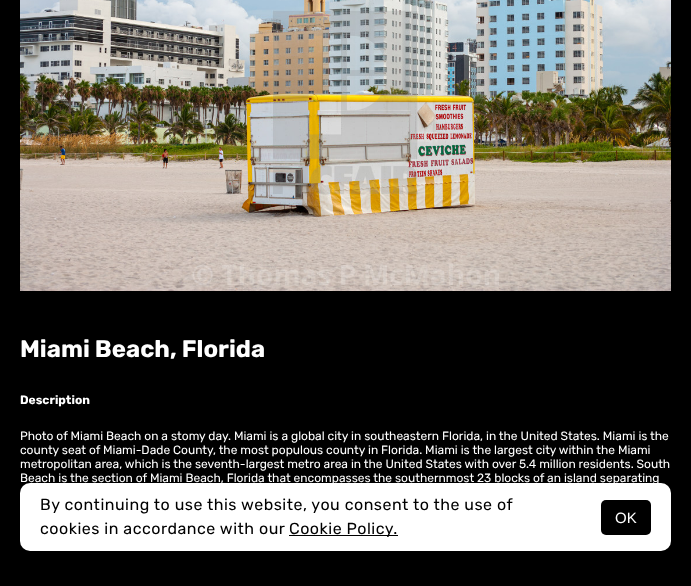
(async () => {
  const canvas = document.querySelector("canvas");
  canvas.width = 691;
  canvas.height = 586;
  const ctx = canvas.getContext("2d");
  ctx.miterLimit = 4;
  ctx.fontKerning = "normal";
  async function loadImage(src) {
    const img = new Image();
    img.src = src;
    await img.decode();
    return img;
  }

  ctx.fillStyle = "#000000";
  ctx.fillRect(0, 0, 691, 586);
  ctx.drawImage(await loadImage("img/1.png"), 20, 0, 651, 291);
  ctx.fillStyle = "#ffffff";
  ctx.beginPath();
  ctx.roundRect(20, 483, 651, 68, 10);
  ctx.fill();
  ctx.fillStyle = "#000000";
  ctx.fillRect(289, 535, 109, 1);
  ctx.beginPath();
  ctx.roundRect(601, 500, 50, 35, 5);
  ctx.fill();
  ctx.font = "bold 24px Rubik";
  ctx.fillStyle = "#ffffff";
  ctx.fillText("Miami Beach, Florida", 20, 357);
  ctx.font = "bold 12px Rubik";
  ctx.fillText("Description", 20, 404);
  ctx.font = "12px Rubik";
  for (const [text, x, y] of [
    ["Photo of Miami Beach on a stomy day. Miami is a global city in southeastern Florida, in the United States. Miami is the", 20, 440],
    ["county seat of Miami-Dade County, the most populous county in Florida. Miami is the largest city within the Miami", 20, 454],
    ["metropolitan area, which is the seventh-largest metro area in the United States with over 5.4 million residents. South", 20, 468],
    ["Beach is the section of Miami Beach, Florida that encompasses the southernmost 23 blocks of an island separating", 20, 482],
  ]) {
    ctx.fillText(text, x, y);
  }
  ctx.letterSpacing = "0.5px";
  ctx.font = "16px Rubik";
  ctx.fillStyle = "#000000";
  for (const [text, x, y] of [
    ["By continuing to use this website, you consent to the use of", 40, 510],
    ["cookies in accordance with our", 40, 534],
    ["Cookie Policy.", 289, 534],
  ]) {
    ctx.fillText(text, x, y);
  }
  ctx.letterSpacing = "0px";
  ctx.font = "15px Liberation Sans";
  ctx.fillStyle = "#ffffff";
  ctx.fillText("OK", 615, 523);
})();
